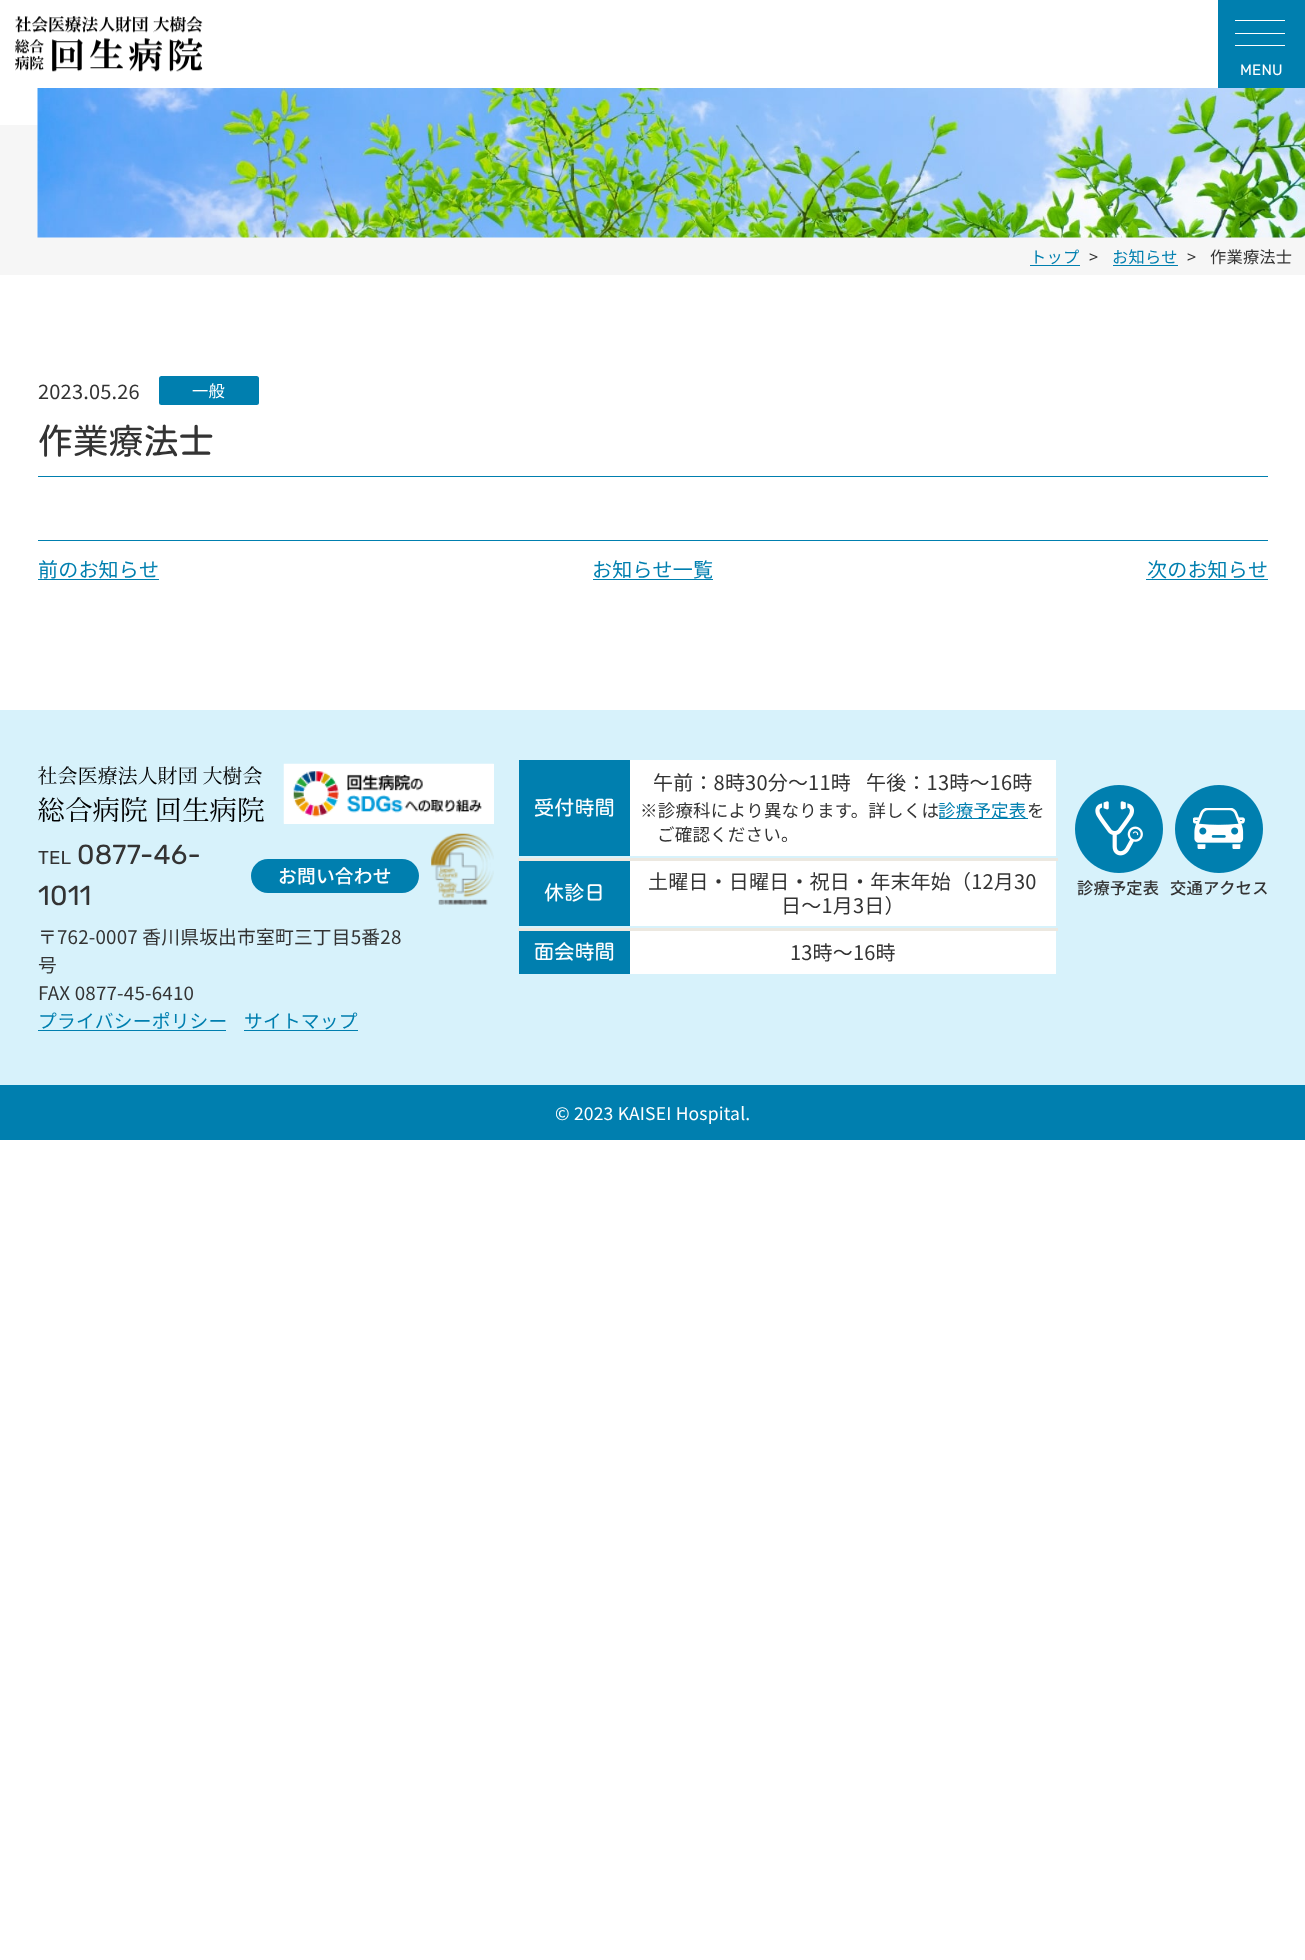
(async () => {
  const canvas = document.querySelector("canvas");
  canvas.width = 1305;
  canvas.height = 1960;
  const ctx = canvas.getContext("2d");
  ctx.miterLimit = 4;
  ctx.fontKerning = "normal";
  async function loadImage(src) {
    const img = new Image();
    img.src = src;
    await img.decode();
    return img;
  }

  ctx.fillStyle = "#ffffff";
  ctx.fillRect(0, 0, 1305, 1960);
  ctx.drawImage(await loadImage("img/1.png"), 15, 16, 188, 56);
  for (const [x, y, w, h, color] of [
    [1218, 0, 87, 88, "#007faf"],
    [1235, 20, 50, 1, "#ffffff"],
    [1235, 33, 50, 1, "#ffffff"],
    [1235, 45, 50, 1, "#ffffff"],
    [0, 125, 1305, 150, "#f6f6f6"],
  ]) {
    ctx.fillStyle = color;
    ctx.fillRect(x, y, w, h);
  }
  ctx.drawImage(await loadImage("img/2.png"), 37, 88, 1268, 150);
  ctx.fillStyle = "#007faf";
  ctx.fillRect(1030, 265, 50, 1);
  ctx.fillRect(1113, 265, 65, 1);
  ctx.beginPath();
  ctx.roundRect(159, 376, 100, 29, 2.5);
  ctx.fill();
  for (const [x, y, w, h, color] of [
    [38, 476, 1230, 1, "#007faf"],
    [38, 540, 1230, 1, "#007faf"],
    [38, 579, 121, 1, "#007faf"],
    [593, 579, 120, 1, "#007faf"],
    [1146, 579, 122, 1, "#007faf"],
    [0, 710, 1305, 375, "#d7f2fb"],
  ]) {
    ctx.fillStyle = color;
    ctx.fillRect(x, y, w, h);
  }
  ctx.drawImage(await loadImage("img/3.png"), 38, 766, 226, 56);
  ctx.fillStyle = "#ffffff";
  ctx.fillRect(284, 764, 210, 60);
  ctx.drawImage(await loadImage("img/4.png"), 283, 763, 211, 61);
  ctx.fillStyle = "#007faf";
  ctx.beginPath();
  ctx.roundRect(251, 859, 168, 34, 17);
  ctx.fill();
  ctx.fillRect(38, 1030, 188, 1);
  ctx.fillRect(244, 1030, 114, 1);
  ctx.drawImage(await loadImage("img/5.png"), 431, 833, 63, 72);
  for (const [x, y, w, h, color] of [
    [519, 760, 111, 96, "#007faf"],
    [630, 760, 426, 96, "#ffffff"],
    [518, 858, 540, 3, "#ece8e0"],
    [939, 818, 89, 1, "#007faf"],
    [519, 861, 111, 65, "#007faf"],
    [630, 861, 426, 65, "#ffffff"],
    [518, 928, 540, 3, "#ece8e0"],
    [519, 931, 111, 43, "#007faf"],
    [630, 931, 426, 43, "#ffffff"],
  ]) {
    ctx.fillStyle = color;
    ctx.fillRect(x, y, w, h);
  }
  ctx.drawImage(await loadImage("img/6.png"), 1075, 785, 88, 88);
  ctx.drawImage(await loadImage("img/7.png"), 1175, 785, 88, 88);
  ctx.fillStyle = "#007faf";
  ctx.fillRect(0, 1085, 1305, 55);
  ctx.letterSpacing = "0.2px";
  ctx.font = "300 15px Rubik";
  ctx.fillStyle = "#ffffff";
  ctx.fillText("MENU", 1240, 75);
  ctx.font = "16.25px Noto Sans JP";
  ctx.fillStyle = "#007faf";
  ctx.fillText("トップ", 1030, 263);
  ctx.fillStyle = "#333333";
  ctx.fillText(">", 1089, 263);
  ctx.fillStyle = "#007faf";
  ctx.fillText("お知らせ", 1112, 263);
  ctx.fillStyle = "#333333";
  ctx.fillText(">", 1187, 263);
  ctx.fillText("作業療法士", 1210, 263);
  ctx.font = "20px Noto Sans JP";
  ctx.fillText("2023.05.26", 38, 399);
  ctx.font = "16.25px Noto Sans JP";
  ctx.fillStyle = "#ffffff";
  ctx.fillText("一般", 192, 397);
  ctx.font = "35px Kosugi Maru";
  ctx.fillStyle = "#333333";
  ctx.fillText("作業療法士", 38, 454);
  ctx.font = "20px Noto Sans JP";
  ctx.fillStyle = "#007faf";
  for (const [text, x, y] of [
    ["前のお知らせ", 38, 577],
    ["お知らせ一覧", 592, 577],
    ["次のお知らせ", 1147, 577],
  ]) {
    ctx.fillText(text, x, y);
  }
  ctx.font = "300 18.75px Rubik";
  ctx.fillStyle = "#333333";
  ctx.fillText("TEL", 38, 864);
  ctx.font = "300 27.5px Rubik";
  ctx.fillText("0877-46-", 77, 864);
  ctx.fillText("1011", 38, 905);
  ctx.font = "500 18.75px Noto Sans JP";
  ctx.fillStyle = "#ffffff";
  ctx.fillText("お問い合わせ", 278, 883);
  ctx.font = "18.75px Noto Sans JP";
  ctx.fillStyle = "#333333";
  for (const [text, x, y] of [
    ["〒762-0007 香川県坂出市室町三丁目5番28", 38, 944],
    ["号", 38, 972],
    ["FAX 0877-45-6410", 38, 1000],
  ]) {
    ctx.fillText(text, x, y);
  }
  ctx.fillStyle = "#007faf";
  ctx.fillText("プライバシーポリシー", 38, 1028);
  ctx.fillText("サイトマップ", 244, 1028);
  ctx.font = "20px Kosugi Maru";
  ctx.fillStyle = "#ffffff";
  ctx.fillText("受付時間", 534, 815);
  ctx.font = "20px Noto Sans JP";
  ctx.fillStyle = "#333333";
  ctx.fillText("午前：8時30分～11時", 653, 790);
  ctx.fillText("午後：13時～16時", 866, 790);
  ctx.font = "17.5px Noto Sans JP";
  ctx.fillText("※診療科により異なります。詳しくは", 640, 817);
  ctx.fillStyle = "#007faf";
  ctx.fillText("診療予定表", 938, 817);
  ctx.fillStyle = "#333333";
  ctx.fillText("を", 1027, 817);
  ctx.fillText("ご確認ください。", 657, 841);
  ctx.font = "20px Kosugi Maru";
  ctx.fillStyle = "#ffffff";
  ctx.fillText("休診日", 544, 900);
  ctx.font = "20px Noto Sans JP";
  ctx.fillStyle = "#333333";
  ctx.fillText("土曜日・日曜日・祝日・年末年始（12月30", 648, 889);
  ctx.fillText("日～1月3日）", 781, 913);
  ctx.font = "20px Kosugi Maru";
  ctx.fillStyle = "#ffffff";
  ctx.fillText("面会時間", 534, 959);
  ctx.font = "20px Noto Sans JP";
  ctx.fillStyle = "#333333";
  ctx.fillText("13時～16時", 790, 960);
  ctx.font = "500 16.25px Noto Sans JP";
  ctx.fillText("診療予定表", 1077, 894);
  ctx.fillText("交通アクセス", 1170, 894);
  ctx.font = "17.5px Noto Sans JP";
  ctx.fillStyle = "#ffffff";
  ctx.fillText("© 2023 KAISEI Hospital.", 555, 1120);
})();
